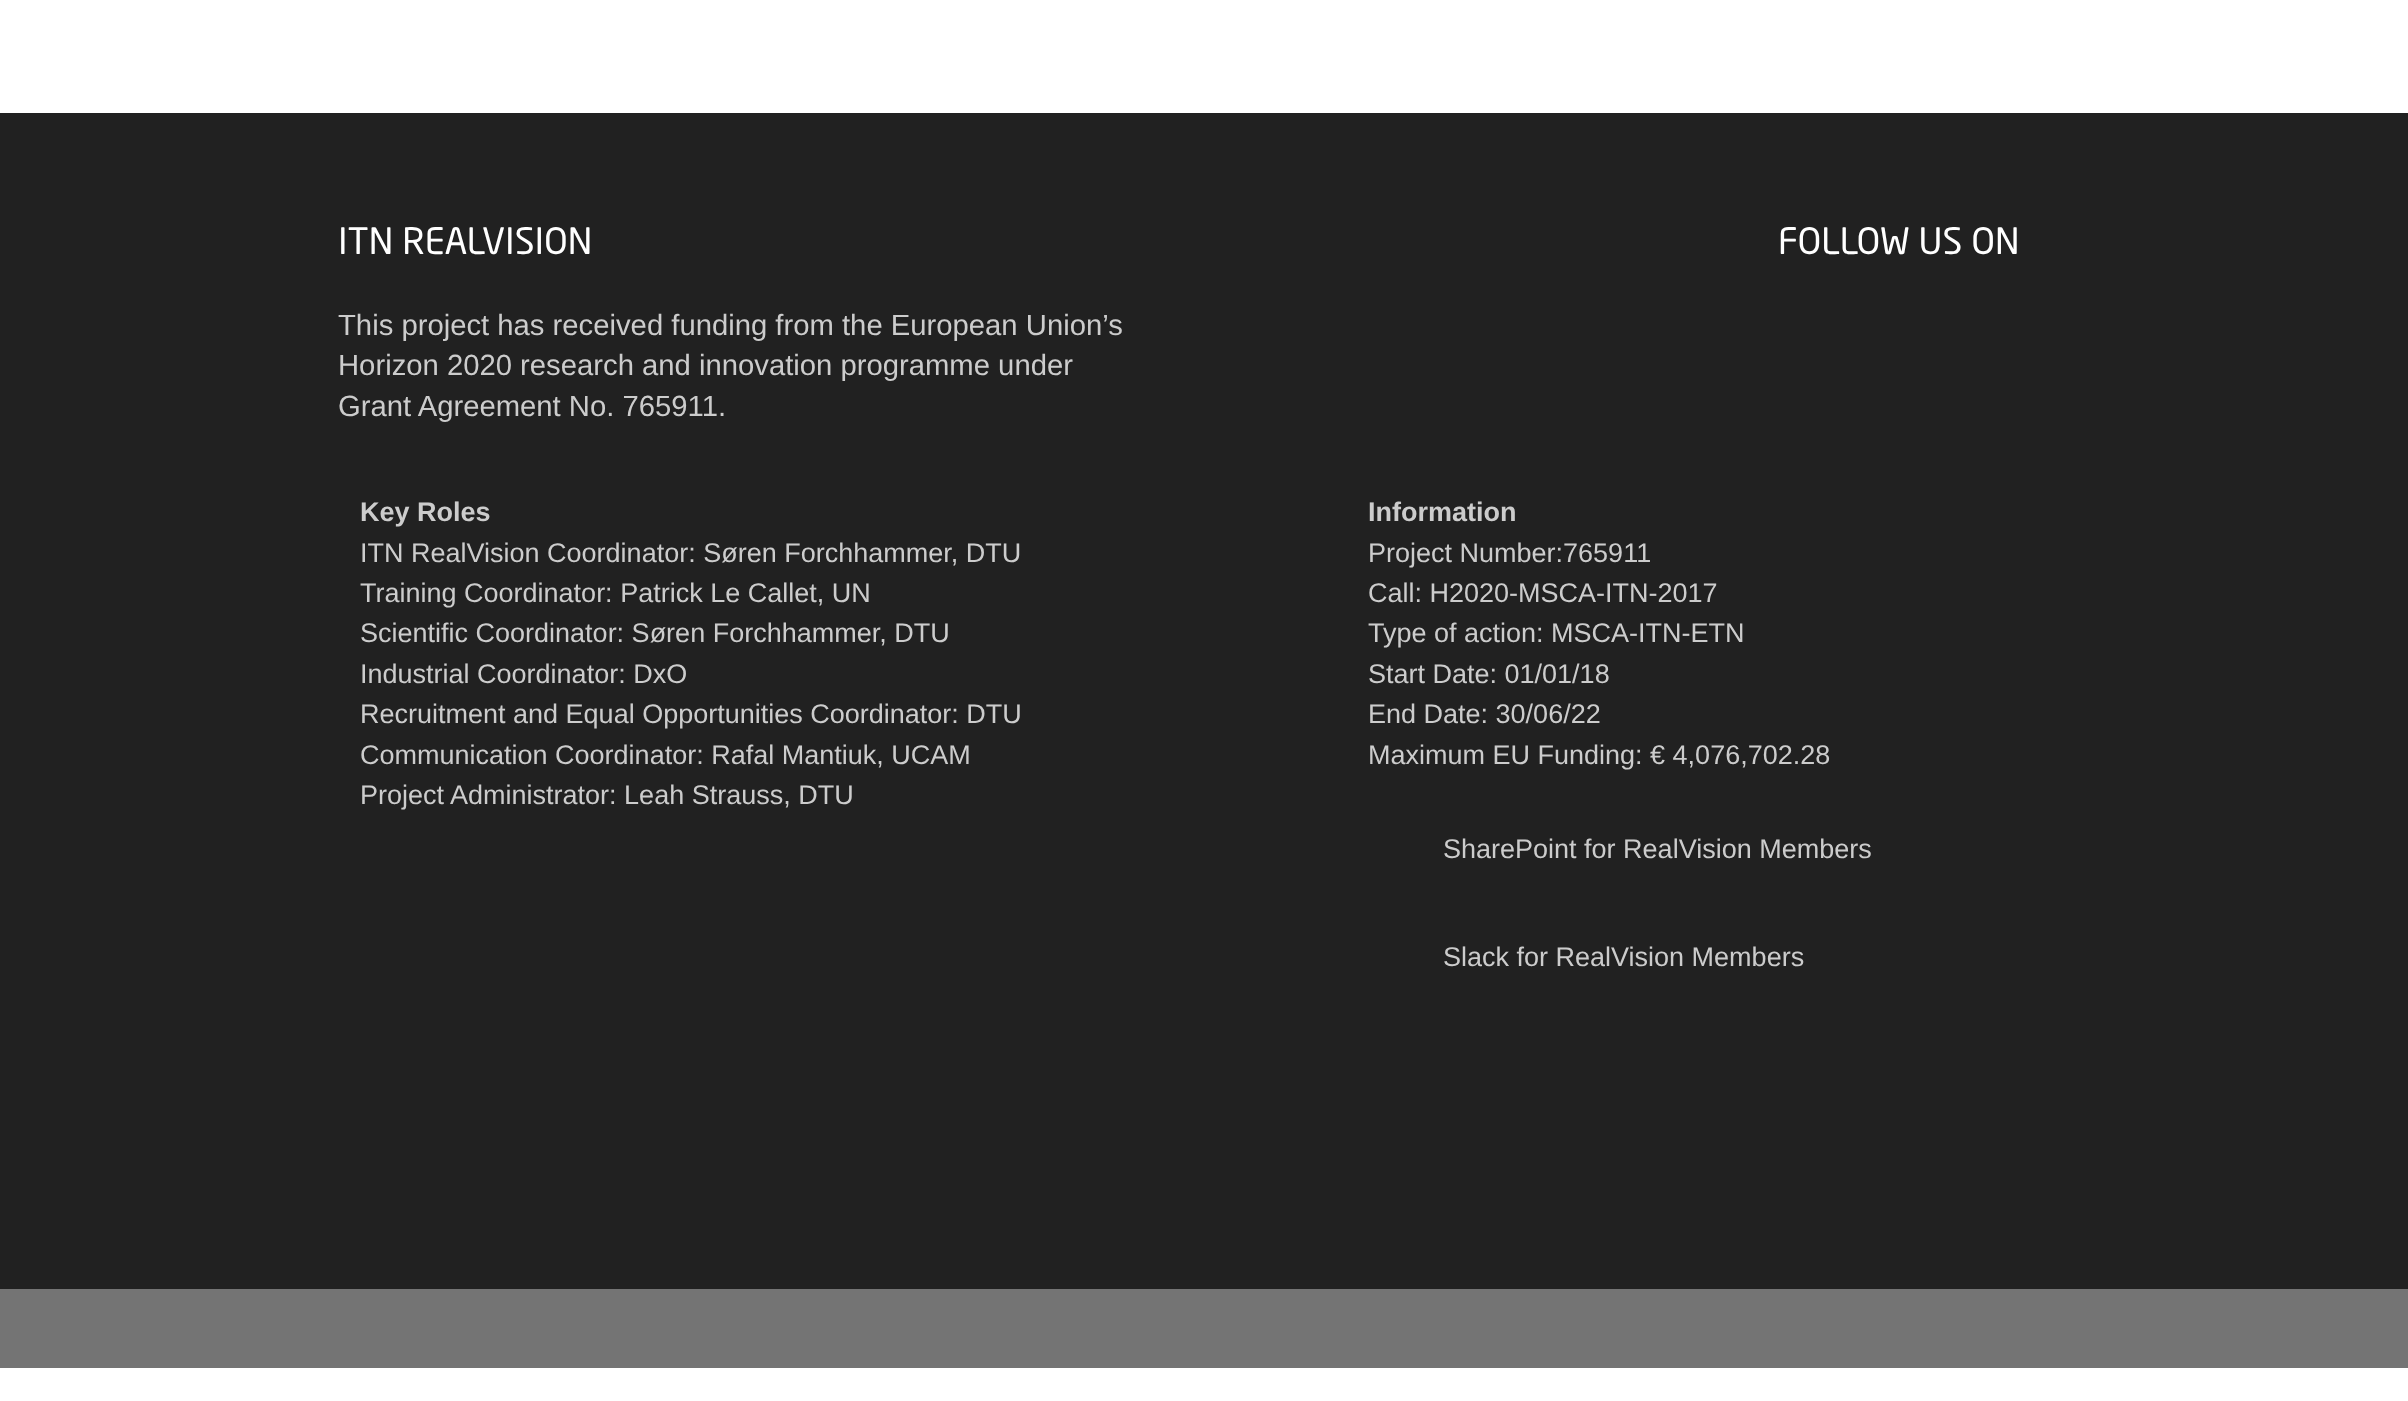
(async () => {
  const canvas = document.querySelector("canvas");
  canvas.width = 2408;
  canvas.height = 1401;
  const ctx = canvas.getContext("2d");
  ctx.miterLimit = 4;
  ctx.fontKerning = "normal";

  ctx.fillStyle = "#ffffff";
  ctx.fillRect(0, 0, 2408, 1401);
  ctx.fillStyle = "#212121";
  ctx.fillRect(0, 113, 2408, 1176);
  ctx.fillStyle = "#747474";
  ctx.fillRect(0, 1289, 2408, 79);
  ctx.font = "36px 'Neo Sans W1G'";
  ctx.fillStyle = "#ffffff";
  ctx.fillText("ITN REALVISION", 338, 254);
  ctx.font = "29.25px Liberation Sans";
  ctx.fillStyle = "#cccccc";
  for (const [text, x, y] of [
    ["This project has received funding from the European Union’s", 338, 335],
    ["Horizon 2020 research and innovation programme under", 338, 375],
    ["Grant Agreement No. 765911.", 338, 416],
  ]) {
    ctx.fillText(text, x, y);
  }
  ctx.font = "bold 27px Liberation Sans";
  ctx.fillText("Key Roles", 360, 521);
  ctx.font = "27px Liberation Sans";
  for (const [text, x, y] of [
    ["ITN RealVision Coordinator: Søren Forchhammer, DTU", 360, 562],
    ["Training Coordinator: Patrick Le Callet, UN", 360, 602],
    ["Scientific Coordinator: Søren Forchhammer, DTU", 360, 642],
    ["Industrial Coordinator: DxO", 360, 683],
    ["Recruitment and Equal Opportunities Coordinator: DTU", 360, 723],
    ["Communication Coordinator: Rafal Mantiuk, UCAM", 360, 764],
    ["Project Administrator: Leah Strauss, DTU", 360, 804],
  ]) {
    ctx.fillText(text, x, y);
  }
  ctx.font = "bold 27px Liberation Sans";
  ctx.fillText("Information", 1368, 521);
  ctx.font = "27px Liberation Sans";
  for (const [text, x, y] of [
    ["Project Number:765911", 1368, 562],
    ["Call: H2020-MSCA-ITN-2017", 1368, 602],
    ["Type of action: MSCA-ITN-ETN", 1368, 642],
    ["Start Date: 01/01/18", 1368, 683],
    ["End Date: 30/06/22", 1368, 723],
    ["Maximum EU Funding: € 4,076,702.28", 1368, 764],
    ["SharePoint for RealVision Members", 1443, 858],
    ["Slack for RealVision Members", 1443, 966],
  ]) {
    ctx.fillText(text, x, y);
  }
  ctx.font = "36px 'Neo Sans W1G'";
  ctx.fillStyle = "#ffffff";
  ctx.fillText("FOLLOW US ON", 1778, 254);
})();
